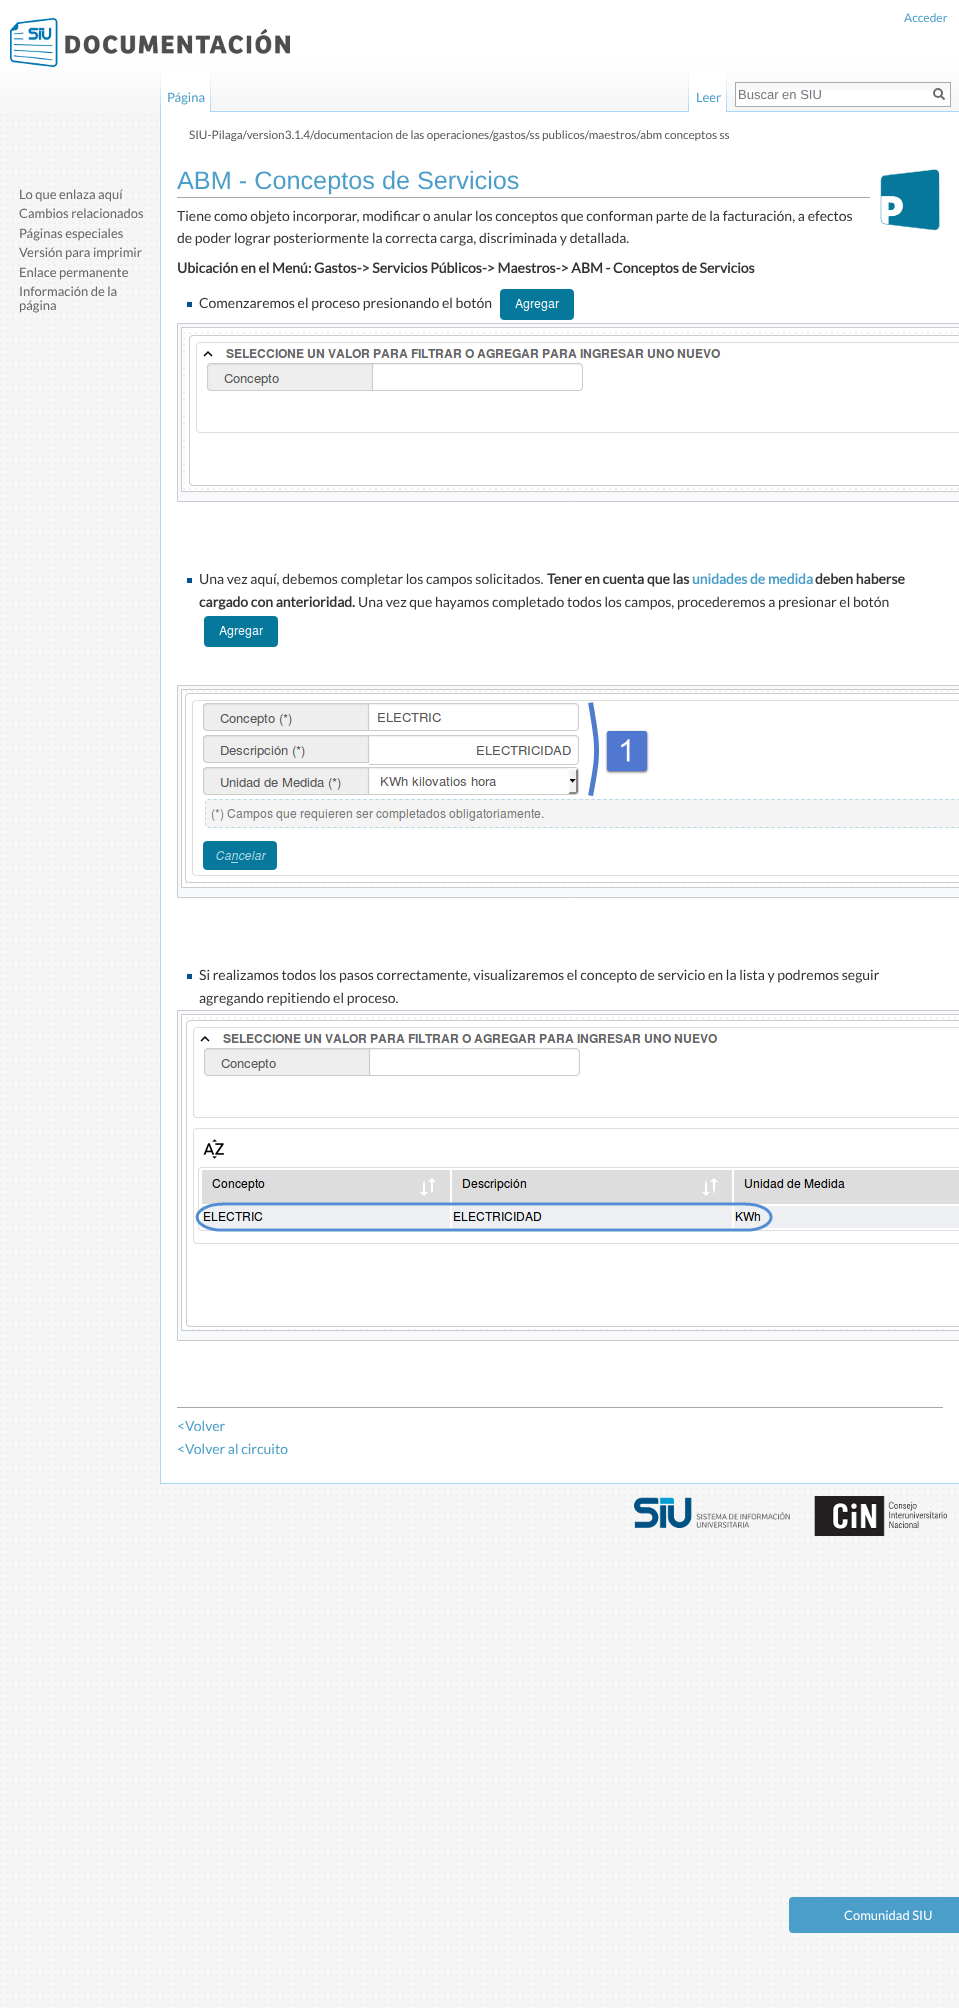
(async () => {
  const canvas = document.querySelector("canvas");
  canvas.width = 959;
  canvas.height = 2008;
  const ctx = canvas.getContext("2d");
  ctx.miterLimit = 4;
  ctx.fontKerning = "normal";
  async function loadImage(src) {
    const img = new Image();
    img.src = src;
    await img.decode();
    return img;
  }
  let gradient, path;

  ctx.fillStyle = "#f6f6f6";
  ctx.fillRect(0, 0, 959, 2008);
  ctx.drawImage(await loadImage("img/1.png"), 0, 114, 956, 1892);
  gradient = ctx.createLinearGradient(480, 0, 480, 112);
  gradient.addColorStop(0.5, "#ffffff");
  gradient.addColorStop(1, "#f6f6f6");
  ctx.fillStyle = gradient;
  ctx.fillRect(0, 0, 959, 96);
  ctx.drawImage(await loadImage("img/2.png"), 160, 74, 1, 37);
  ctx.fillStyle = "#ffffff";
  ctx.fillRect(161, 72, 49, 40);
  ctx.drawImage(await loadImage("img/3.png"), 210, 72, 1, 40);
  ctx.drawImage(await loadImage("img/2.png"), 688, 74, 1, 37);
  ctx.fillStyle = "#a7d7f9";
  ctx.fillRect(211, 111, 748, 1);
  ctx.fillStyle = "#ffffff";
  ctx.fillRect(689, 72, 37, 40);
  ctx.drawImage(await loadImage("img/3.png"), 726, 72, 1, 40);
  ctx.fillRect(736, 91, 214, 15);
  ctx.drawImage(await loadImage("img/4.png"), 736, 83, 214, 8);
  ctx.strokeStyle = "#aaaaaa";
  ctx.strokeRect(735.5, 82.5, 215, 24);
  path = new Path2D("M944.5 99.5L940.5 95.5");
  ctx.strokeStyle = "#6c6c6c";
  ctx.lineWidth = 2;
  ctx.stroke(path);
  ctx.beginPath();
  ctx.arc(938, 93, 4, 0, Math.PI * 2);
  ctx.stroke();
  ctx.drawImage(await loadImage("img/5.png"), 10, 18, 280, 49);
  for (const [x, y, w, h, color] of [
    [161, 112, 798, 1371, "#ffffff"],
    [160, 1483, 799, 1, "#a7d7f9"],
    [160, 111, 1, 1373, "#a7d7f9"],
    [177, 197, 693, 1, "#a2a9b1"],
  ]) {
    ctx.fillStyle = color;
    ctx.fillRect(x, y, w, h);
  }
  ctx.drawImage(await loadImage("img/6.png"), 880, 169, 60, 62);
  ctx.fillStyle = "#00528c";
  ctx.fillRect(187, 302, 5, 5);
  ctx.drawImage(await loadImage("img/7.png"), 500, 289, 74, 31);
  ctx.fillStyle = "#f8f9fa";
  ctx.beginPath();
  ctx.rect(177.5, 323.5, 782, 178);
  ctx.fill();
  ctx.strokeStyle = "#c8ccd1";
  ctx.lineWidth = 1;
  ctx.stroke();
  ctx.fillStyle = "#ffffff";
  ctx.beginPath();
  ctx.rect(181.5, 327.5, 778, 164);
  ctx.fill();
  ctx.stroke();
  ctx.drawImage(await loadImage("img/8.png"), 183, 332, 776, 158);
  ctx.fillStyle = "#00528c";
  ctx.fillRect(187, 578, 5, 5);
  ctx.drawImage(await loadImage("img/7.png"), 204, 616, 74, 31);
  ctx.fillStyle = "#f8f9fa";
  ctx.beginPath();
  ctx.rect(177.5, 685.5, 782, 212);
  ctx.fill();
  ctx.stroke();
  ctx.fillStyle = "#ffffff";
  ctx.beginPath();
  ctx.rect(181.5, 689.5, 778, 198);
  ctx.fill();
  ctx.stroke();
  ctx.drawImage(await loadImage("img/9.png"), 185, 690, 774, 194);
  ctx.fillStyle = "#00528c";
  ctx.fillRect(187, 974, 5, 5);
  ctx.fillStyle = "#f8f9fa";
  ctx.beginPath();
  ctx.rect(177.5, 1010.5, 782, 330);
  ctx.fill();
  ctx.stroke();
  ctx.fillStyle = "#ffffff";
  ctx.beginPath();
  ctx.rect(181.5, 1014.5, 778, 316);
  ctx.fill();
  ctx.stroke();
  ctx.drawImage(await loadImage("img/10.png"), 186, 1017, 773, 313);
  ctx.fillStyle = "#a2a9b1";
  ctx.fillRect(177, 1407, 766, 1);
  ctx.drawImage(await loadImage("img/11.png"), 634, 1496, 313, 40);
  ctx.fillStyle = "#4b9ec9";
  ctx.beginPath();
  ctx.roundRect(789, 1897, 170, 36, [4, 0, 0, 4]);
  ctx.fill();
  ctx.font = "12px Lato";
  ctx.fillText("Acceder", 904, 22);
  ctx.font = "13px Lato";
  ctx.fillText("Página", 167, 102);
  ctx.fillText("Leer", 696, 102);
  ctx.font = "13px Liberation Sans";
  ctx.fillStyle = "#72777d";
  ctx.fillText("Buscar en SIU", 738, 99);
  ctx.font = "13px Lato";
  ctx.fillStyle = "#666666";
  for (const [text, x, y] of [
    ["Lo que enlaza aquí", 19, 199],
    ["Cambios relacionados", 19, 218],
    ["Páginas especiales", 19, 238],
    ["Versión para imprimir", 19, 257],
    ["Enlace permanente", 19, 277],
    ["Información de la", 19, 296],
    ["página", 19, 310],
  ]) {
    ctx.fillText(text, x, y);
  }
  ctx.font = "11.75px Lato";
  ctx.fillStyle = "#54595d";
  ctx.fillText("SIU-Pilaga/version3.1.4/documentacion de las operaciones/gastos/ss publicos/maestros/abm conceptos ss", 189, 139);
  ctx.font = "25.25px Arimo";
  ctx.fillStyle = "#4b9ec9";
  ctx.fillText("ABM - Conceptos de Servicios", 177, 189);
  ctx.font = "14px Lato";
  ctx.fillStyle = "#333333";
  ctx.fillText("Tiene como objeto incorporar, modificar o anular los conceptos que conforman parte de la facturación, a efectos", 177, 221);
  ctx.fillText("de poder lograr posteriormente la correcta carga, discriminada y detallada.", 177, 243);
  ctx.font = "bold 14px Lato";
  ctx.fillText("Ubicación en el Menú: Gastos-> Servicios Públicos-> Maestros-> ABM - Conceptos de Servicios", 177, 273);
  ctx.font = "14px Lato";
  ctx.fillText("Comenzaremos el proceso presionando el botón", 199, 308);
  ctx.fillText("Una vez aquí, debemos completar los campos solicitados.", 199, 584);
  ctx.font = "bold 14px Lato";
  ctx.fillText("Tener en cuenta que las", 547, 584);
  ctx.fillStyle = "#4b9ec9";
  ctx.fillText("unidades de medida", 692, 584);
  ctx.fillStyle = "#333333";
  ctx.fillText("deben haberse", 815, 584);
  ctx.fillText("cargado con anterioridad.", 199, 607);
  ctx.font = "14px Lato";
  for (const [text, x, y] of [
    ["Una vez que hayamos completado todos los campos, procederemos a presionar el botón", 358, 607],
    ["Si realizamos todos los pasos correctamente, visualizaremos el concepto de servicio en la lista y podremos seguir", 199, 980],
    ["agregando repitiendo el proceso.", 199, 1003],
  ]) {
    ctx.fillText(text, x, y);
  }
  ctx.fillStyle = "#4b9ec9";
  ctx.fillText("<Volver", 177, 1431);
  ctx.fillText("<Volver al circuito", 177, 1454);
  ctx.font = "13px Lato";
  ctx.fillStyle = "#ffffff";
  ctx.fillText("Comunidad SIU", 844, 1920);
})();
